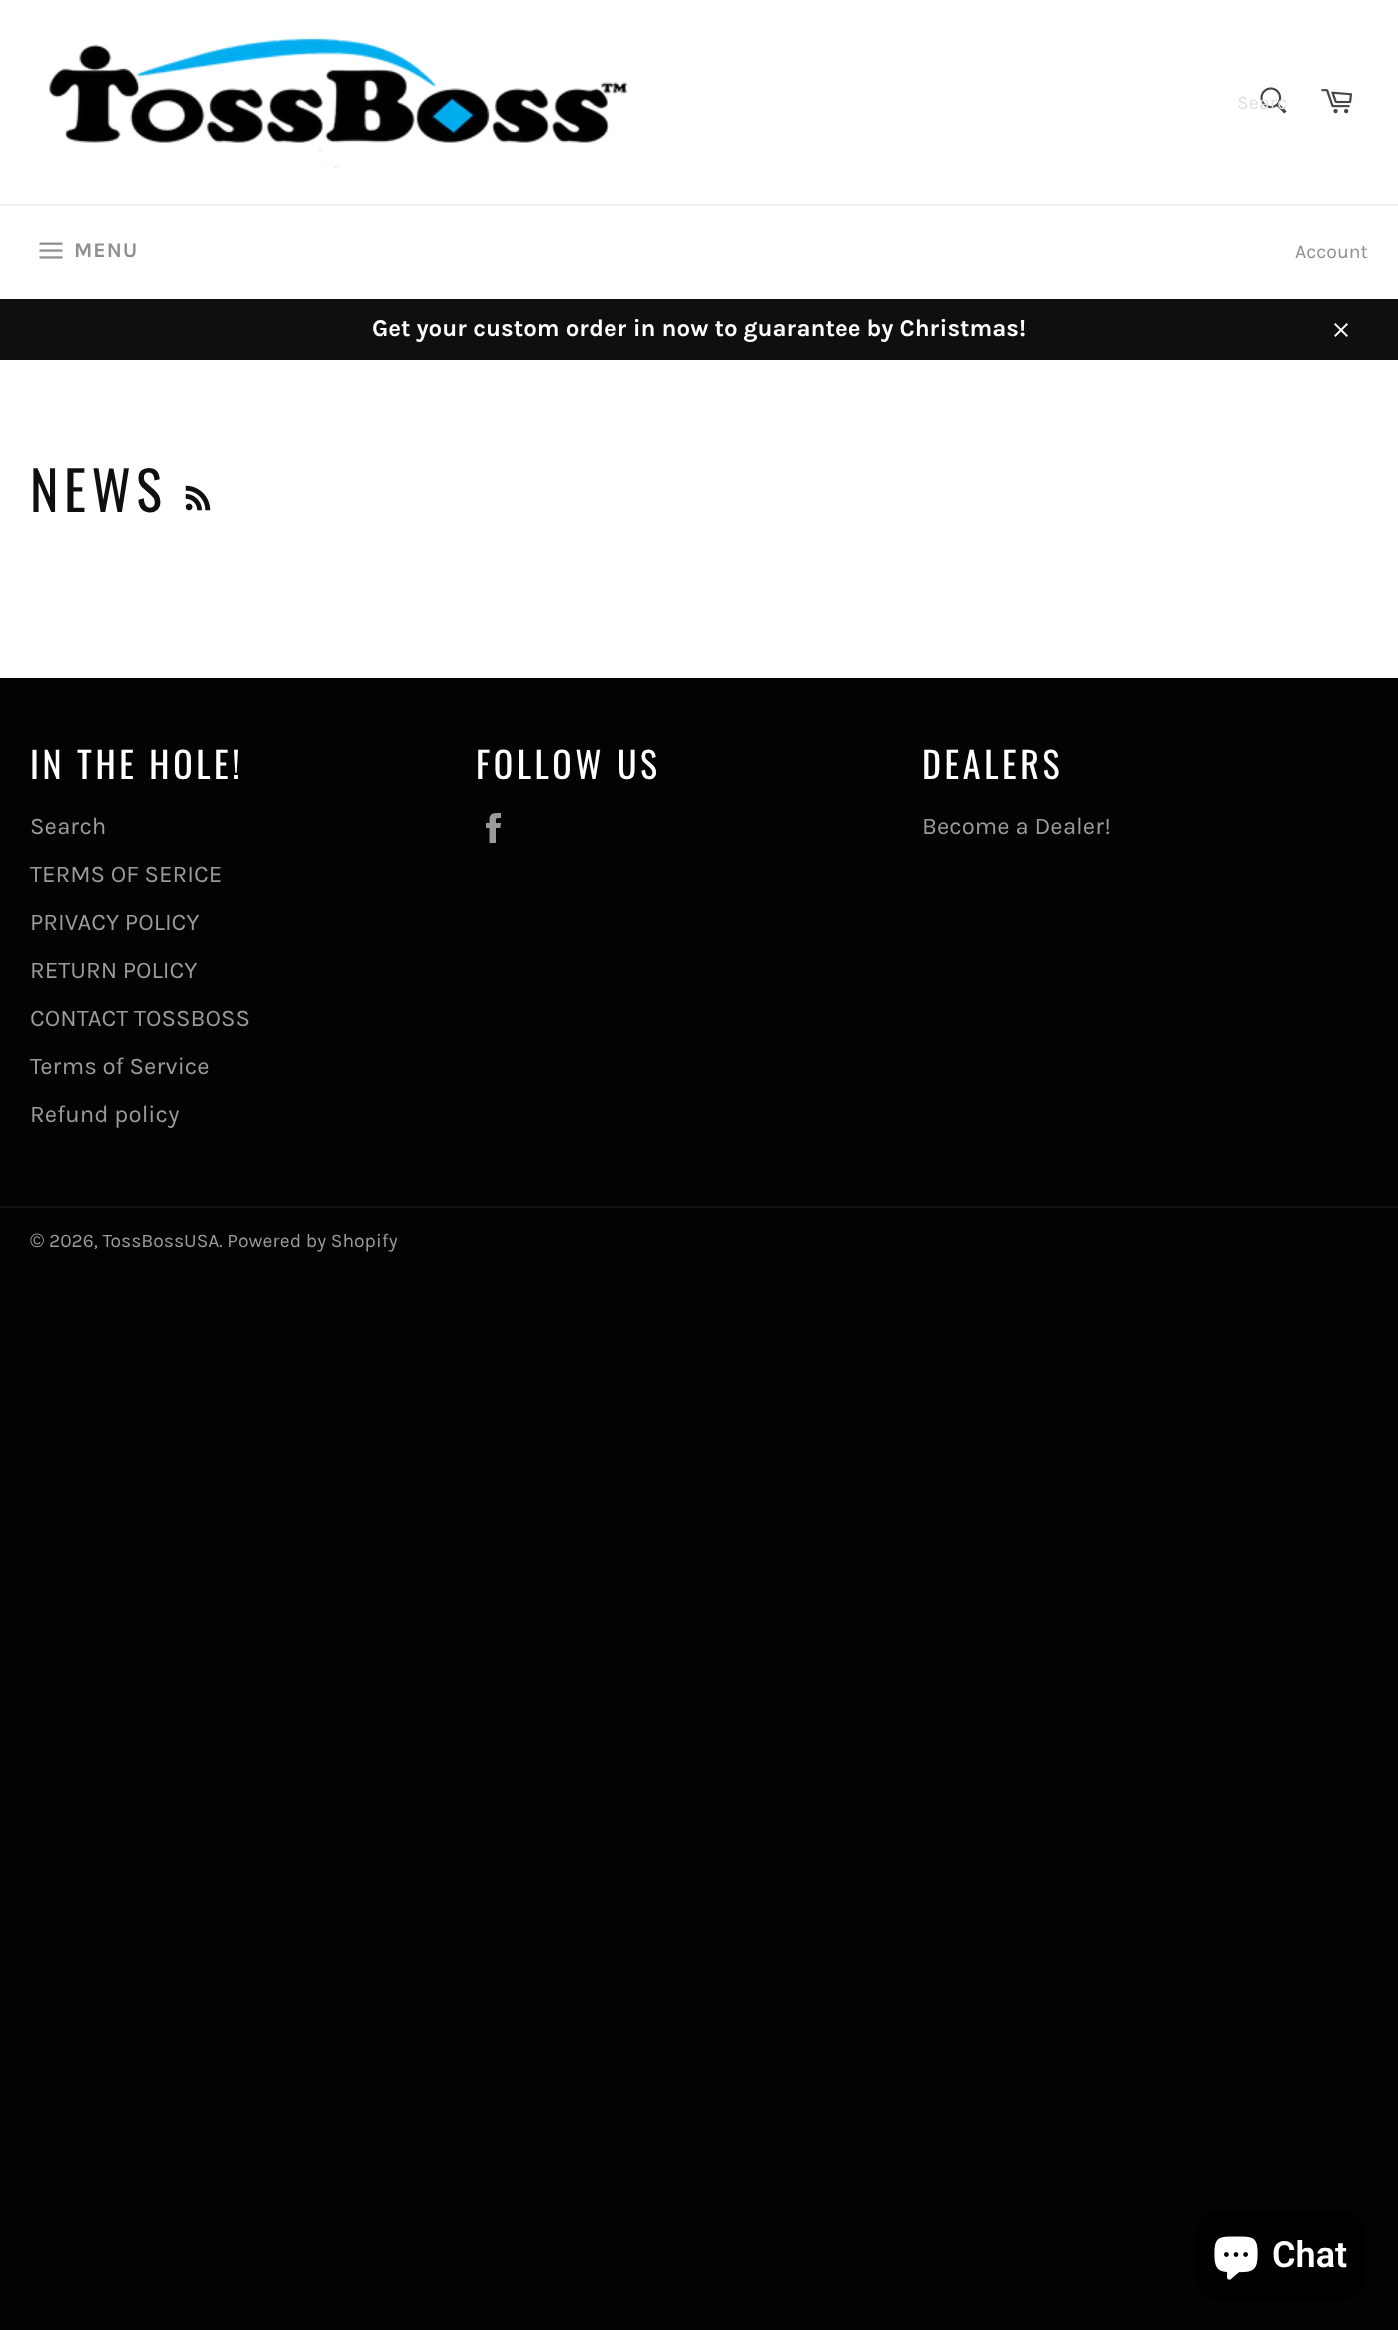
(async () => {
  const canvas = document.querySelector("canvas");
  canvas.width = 1398;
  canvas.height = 2330;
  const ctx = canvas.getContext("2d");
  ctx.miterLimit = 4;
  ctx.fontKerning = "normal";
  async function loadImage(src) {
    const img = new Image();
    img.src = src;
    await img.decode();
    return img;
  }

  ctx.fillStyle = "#030303";
  ctx.fillRect(0, 0, 1398, 2330);
  ctx.fillStyle = "#ffffff";
  ctx.fillRect(0, 0, 1398, 678);
  ctx.drawImage(await loadImage("img/1.png"), 49, 37, 579, 131);
  ctx.drawImage(await loadImage("img/2.png"), 1260, 87, 27, 27);
  ctx.drawImage(await loadImage("img/3.png"), 1321, 89, 31, 25);
  ctx.fillStyle = "#f2f2f2";
  ctx.fillRect(0, 204, 1398, 2);
  ctx.drawImage(await loadImage("img/4.png"), 39, 242, 24, 17);
  ctx.fillStyle = "#0f0f0f";
  ctx.fillRect(0, 299, 1398, 61);
  ctx.drawImage(await loadImage("img/5.png"), 1334, 323, 14, 14);
  ctx.drawImage(await loadImage("img/6.png"), 185, 485, 26, 26);
  ctx.drawImage(await loadImage("img/7.png"), 486, 813, 15, 30);
  ctx.fillStyle = "#101010";
  ctx.fillRect(0, 1206, 1398, 2);
  ctx.fillStyle = "#000000";
  ctx.beginPath();
  ctx.roundRect(1196, 2210, 169, 90, 24);
  ctx.fill();
  ctx.drawImage(await loadImage("img/8.png"), 1214, 2236, 44, 44);
  ctx.save();
  ctx.beginPath();
  ctx.rect(1238, 92, 48, 22);
  ctx.clip();
  ctx.font = "19.5px Karla";
  ctx.fillStyle = "#e2e1e1";
  ctx.fillText("Searc", 1237, 109);
  ctx.restore();
  ctx.letterSpacing = "1px";
  ctx.font = "bold 21px Karla";
  ctx.fillStyle = "#918f8f";
  ctx.fillText("MENU", 74, 257);
  ctx.letterSpacing = "0px";
  ctx.font = "19.5px Karla";
  ctx.fillText("Account", 1295, 258);
  ctx.font = "bold 24px Karla";
  ctx.fillStyle = "#ffffff";
  ctx.fillText("Get your custom order in now to guarantee by Christmas!", 372, 336);
  ctx.letterSpacing = "5.5px";
  ctx.font = "54px Oswald";
  ctx.fillStyle = "#0f0f0f";
  ctx.fillText("NEWS", 30, 512);
  ctx.letterSpacing = "3.6px";
  ctx.font = "36px Oswald";
  ctx.fillStyle = "#ffffff";
  ctx.fillText("IN THE HOLE!", 30, 779);
  ctx.letterSpacing = "0px";
  ctx.font = "24px Karla";
  ctx.fillStyle = "#9a9a9a";
  for (const [text, x, y] of [
    ["Search", 30, 834],
    ["TERMS OF SERICE", 30, 882],
    ["PRIVACY POLICY", 30, 930],
    ["RETURN POLICY", 30, 978],
    ["CONTACT TOSSBOSS", 30, 1026],
    ["Terms of Service", 30, 1074],
    ["Refund policy", 30, 1122],
  ]) {
    ctx.fillText(text, x, y);
  }
  ctx.letterSpacing = "3.6px";
  ctx.font = "36px Oswald";
  ctx.fillStyle = "#ffffff";
  ctx.fillText("FOLLOW US", 476, 779);
  ctx.fillText("DEALERS", 922, 779);
  ctx.letterSpacing = "0px";
  ctx.font = "24px Karla";
  ctx.fillStyle = "#9a9a9a";
  ctx.fillText("Become a Dealer!", 922, 834);
  ctx.font = "19.25px Liberation Sans";
  ctx.fillText("©", 30, 1247);
  ctx.font = "19.25px Karla";
  ctx.fillText("2026, TossBossUSA. Powered by Shopify", 49, 1247);
  ctx.font = "600 36px Roboto";
  ctx.fillStyle = "#ffffff";
  ctx.fillText("Chat", 1272, 2267);
})();
